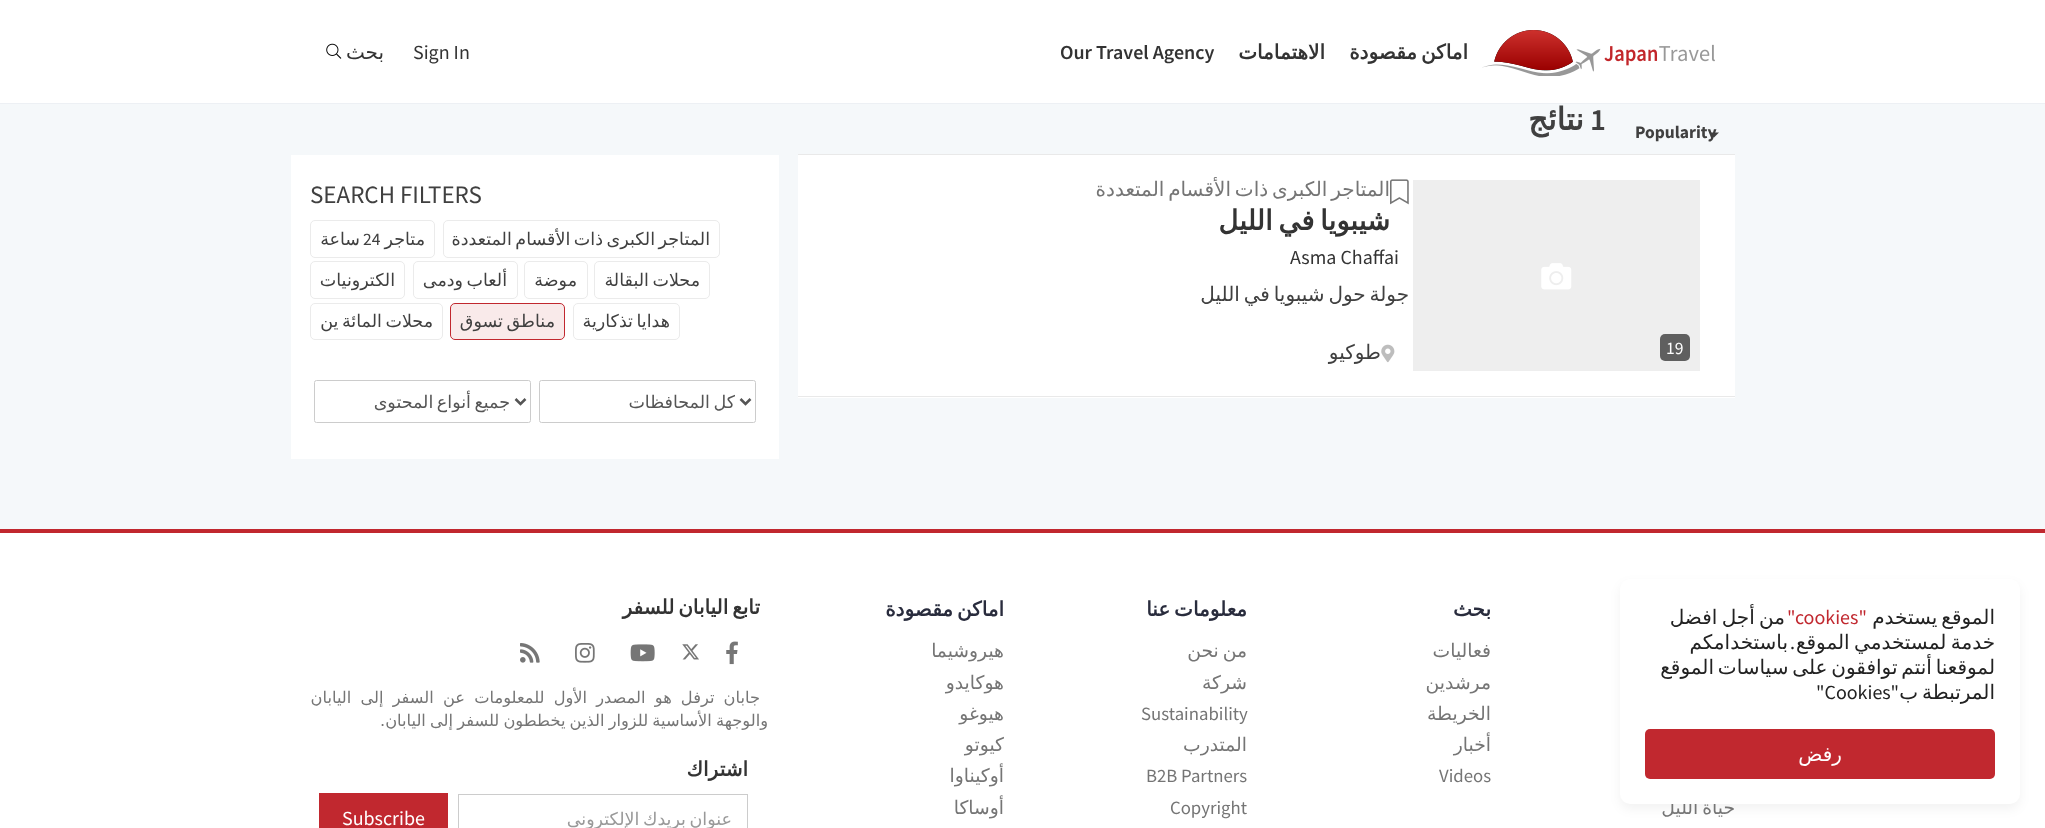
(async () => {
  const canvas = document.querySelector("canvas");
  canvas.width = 2045;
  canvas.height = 828;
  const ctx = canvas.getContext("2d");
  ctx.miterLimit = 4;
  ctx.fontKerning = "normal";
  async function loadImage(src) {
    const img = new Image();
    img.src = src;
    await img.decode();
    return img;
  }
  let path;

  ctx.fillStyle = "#f5f8fa";
  ctx.fillRect(0, 0, 2045, 828);
  ctx.fillStyle = "#ffffff";
  ctx.fillRect(0, 533, 2045, 295);
  ctx.fillStyle = "rgba(0, 0, 0, 0.05)";
  ctx.filter = "blur(5.5px)";
  ctx.beginPath();
  ctx.roundRect(1620, 584, 400, 225, 10);
  ctx.fill();
  ctx.filter = "none";
  ctx.fillStyle = "#ffffff";
  ctx.fillRect(0, 0, 2045, 103);
  ctx.fillStyle = "#edf0f4";
  ctx.fillRect(0, 103, 2045, 1);
  ctx.drawImage(await loadImage("img/1.png"), 1482, 30, 233, 46);
  ctx.drawImage(await loadImage("img/2.png"), 326, 43, 16, 16);
  ctx.fillStyle = "#404040";
  path = new Path2D("M1709 132.5H1719L1714 137.5Z");
  ctx.fill(path);
  for (const [x, y, w, h, color] of [
    [798, 155, 937, 243, "#ffffff"],
    [798, 154, 937, 1, "#e9e9e9"],
    [798, 396, 937, 1, "#e9e9e9"],
    [1413, 180, 287, 191, "#eeeeee"],
  ]) {
    ctx.fillStyle = color;
    ctx.fillRect(x, y, w, h);
  }
  ctx.drawImage(await loadImage("img/3.png"), 1541, 263, 31, 27);
  ctx.fillStyle = "#5f5f5f";
  ctx.beginPath();
  ctx.roundRect(1660, 334, 30, 27, 5);
  ctx.fill();
  ctx.drawImage(await loadImage("img/4.png"), 1390, 179, 19, 26);
  ctx.drawImage(await loadImage("img/5.png"), 1381, 344, 14, 19);
  ctx.fillStyle = "#ffffff";
  ctx.fillRect(291, 155, 488, 304);
  ctx.beginPath();
  ctx.roundRect(443.5, 220.5, 276, 37, 4.5);
  ctx.strokeStyle = "#ebebeb";
  ctx.stroke();
  ctx.beginPath();
  ctx.roundRect(310.5, 220.5, 124, 37, 4.5);
  ctx.stroke();
  ctx.beginPath();
  ctx.roundRect(594.5, 261.5, 115, 37, 4.5);
  ctx.stroke();
  ctx.beginPath();
  ctx.roundRect(524.5, 261.5, 63, 37, 4.5);
  ctx.stroke();
  ctx.beginPath();
  ctx.roundRect(413.5, 261.5, 104, 37, 4.5);
  ctx.stroke();
  ctx.beginPath();
  ctx.roundRect(310.5, 261.5, 94, 37, 4.5);
  ctx.stroke();
  ctx.beginPath();
  ctx.roundRect(573.5, 303.5, 106, 36, 4.5);
  ctx.stroke();
  ctx.fillStyle = "#f9eaea";
  ctx.beginPath();
  ctx.roundRect(450.5, 303.5, 114, 36, 4.5);
  ctx.fill();
  ctx.strokeStyle = "#c1282f";
  ctx.stroke();
  ctx.beginPath();
  ctx.roundRect(310.5, 303.5, 132, 36, 4.5);
  ctx.strokeStyle = "#ebebeb";
  ctx.stroke();
  ctx.beginPath();
  ctx.roundRect(539.5, 380.5, 216, 42, 2);
  ctx.strokeStyle = "#cccccc";
  ctx.stroke();
  path = new Path2D("M740.5 399L745.5 404L750.5 399");
  ctx.strokeStyle = "#555555";
  ctx.lineWidth = 2.5;
  ctx.stroke(path);
  ctx.beginPath();
  ctx.roundRect(314.5, 380.5, 216, 42, 2);
  ctx.strokeStyle = "#cccccc";
  ctx.lineWidth = 1;
  ctx.stroke();
  path = new Path2D("M515.5 399L520.5 404L525.5 399");
  ctx.strokeStyle = "#555555";
  ctx.lineWidth = 2.5;
  ctx.stroke(path);
  ctx.fillStyle = "#c1282f";
  ctx.fillRect(0, 529, 2045, 4);
  ctx.drawImage(await loadImage("img/6.png"), 726, 641, 12, 24);
  ctx.drawImage(await loadImage("img/7.png"), 682, 644, 17, 16);
  ctx.drawImage(await loadImage("img/8.png"), 630, 644, 25, 18);
  ctx.drawImage(await loadImage("img/9.png"), 575, 643, 20, 20);
  ctx.drawImage(await loadImage("img/10.png"), 520, 643, 20, 20);
  ctx.strokeStyle = "#cccccc";
  ctx.lineWidth = 1;
  ctx.strokeRect(458.5, 794.5, 289, 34);
  ctx.fillRect(319, 793, 129, 35);
  ctx.wordSpacing = "-2.5px";
  ctx.direction = "rtl";
  ctx.font = "bold 20px DejaVu Sans";
  ctx.fillStyle = "#333333";
  ctx.fillText("اماكن مقصودة", 1468, 59);
  ctx.wordSpacing = "0px";
  ctx.fillText("الاهتمامات", 1325, 59);
  ctx.direction = "ltr";
  ctx.font = "600 20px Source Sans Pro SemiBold";
  ctx.fillText("Our Travel Agency", 1060, 59);
  ctx.font = "20px Source Sans Pro";
  ctx.fillText("Sign In", 413, 59);
  ctx.direction = "rtl";
  ctx.font = "20px DejaVu Sans";
  ctx.fillText("بحث", 384, 59);
  ctx.direction = "ltr";
  ctx.font = "bold 17.5px Source Sans Pro";
  ctx.fillStyle = "#404040";
  ctx.fillText("Popularity", 1635, 138);
  ctx.font = "600 31px Source Sans Pro SemiBold";
  ctx.fillText("1", 1590, 130);
  ctx.direction = "rtl";
  ctx.font = "bold 31px DejaVu Sans";
  ctx.fillText("نتائج", 1584, 130);
  ctx.direction = "ltr";
  ctx.font = "17.5px Source Sans Pro";
  ctx.fillStyle = "#ffffff";
  ctx.fillText("19", 1666, 354);
  ctx.wordSpacing = "-2.5px";
  ctx.direction = "rtl";
  ctx.font = "20px DejaVu Sans";
  ctx.fillStyle = "#757575";
  ctx.fillText("المتاجر الكبرى ذات الأقسام المتعددة", 1390, 196);
  ctx.wordSpacing = "-3px";
  ctx.font = "bold 27.5px DejaVu Sans";
  ctx.fillStyle = "#333333";
  ctx.fillText("شيبويا في الليل", 1390, 230);
  ctx.wordSpacing = "0px";
  ctx.direction = "ltr";
  ctx.font = "20px Source Sans Pro";
  ctx.fillText("Asma Chaffai", 1290, 264);
  ctx.save();
  ctx.beginPath();
  ctx.rect(801, 281, 608, 40);
  ctx.clip();
  ctx.wordSpacing = "-2.5px";
  ctx.direction = "rtl";
  ctx.font = "20px DejaVu Sans";
  ctx.fillStyle = "#404040";
  ctx.fillText("جولة حول شيبويا في الليل", 1409, 301);
  ctx.restore();
  ctx.direction = "rtl";
  ctx.font = "20px DejaVu Sans";
  ctx.fillStyle = "#404040";
  ctx.fillText("طوكيو", 1381, 359);
  ctx.direction = "ltr";
  ctx.font = "25px Source Sans Pro";
  ctx.fillText("SEARCH FILTERS", 310, 203);
  ctx.wordSpacing = "-2px";
  ctx.direction = "rtl";
  ctx.font = "17.5px DejaVu Sans";
  ctx.fillText("المتاجر الكبرى ذات الأقسام المتعددة", 710, 245);
  ctx.wordSpacing = "0px";
  ctx.fillText("متاجر", 425, 245);
  ctx.direction = "ltr";
  ctx.font = "17.5px Source Sans Pro";
  ctx.fillText("24", 363, 245);
  ctx.direction = "rtl";
  ctx.font = "17.5px DejaVu Sans";
  ctx.fillText("ساعة", 360, 245);
  ctx.wordSpacing = "-2px";
  ctx.fillText("محلات البقالة", 700, 286);
  ctx.wordSpacing = "0px";
  ctx.fillText("موضة", 577, 286);
  ctx.wordSpacing = "-2px";
  ctx.fillText("ألعاب ودمى", 507, 286);
  ctx.wordSpacing = "0px";
  ctx.fillText("الكترونيات", 395, 286);
  ctx.wordSpacing = "-2px";
  for (const [text, x, y] of [
    ["هدايا تذكارية", 670, 327],
    ["مناطق تسوق", 555, 327],
    ["محلات المائة ين", 433, 327],
  ]) {
    ctx.fillText(text, x, y);
  }
  ctx.save();
  ctx.beginPath();
  ctx.rect(575, 389, 160, 25);
  ctx.clip();
  ctx.fillStyle = "#555555";
  ctx.fillText("كل المحافظات", 735, 408);
  ctx.restore();
  ctx.save();
  ctx.beginPath();
  ctx.rect(350, 389, 160, 25);
  ctx.clip();
  ctx.fillStyle = "#555555";
  ctx.fillText("جميع أنواع المحتوى", 510, 408);
  ctx.restore();
  ctx.wordSpacing = "0px";
  ctx.font = "bold 20px DejaVu Sans";
  ctx.fillStyle = "#292c3d";
  ctx.fillText("بحث", 1491, 616);
  ctx.font = "18.75px DejaVu Sans";
  ctx.fillStyle = "#757575";
  for (const [text, x, y] of [
    ["فعاليات", 1491, 657],
    ["مرشدين", 1491, 689],
    ["الخريطة", 1491, 720],
    ["أخبار", 1491, 751],
  ]) {
    ctx.fillText(text, x, y);
  }
  ctx.direction = "ltr";
  ctx.font = "18.75px Source Sans Pro";
  ctx.fillText("Videos", 1439, 782);
  ctx.wordSpacing = "-2.5px";
  ctx.direction = "rtl";
  ctx.font = "bold 20px DejaVu Sans";
  ctx.fillStyle = "#292c3d";
  ctx.fillText("معلومات عنا", 1247, 616);
  ctx.wordSpacing = "-2px";
  ctx.font = "18.75px DejaVu Sans";
  ctx.fillStyle = "#757575";
  ctx.fillText("من نحن", 1247, 657);
  ctx.wordSpacing = "0px";
  ctx.fillText("شركة", 1247, 689);
  ctx.direction = "ltr";
  ctx.font = "18.75px Source Sans Pro";
  ctx.fillText("Sustainability", 1141, 720);
  ctx.direction = "rtl";
  ctx.font = "18.75px DejaVu Sans";
  ctx.fillText("المتدرب", 1247, 751);
  ctx.direction = "ltr";
  ctx.font = "18.75px Source Sans Pro";
  ctx.fillText("B2B Partners", 1146, 782);
  ctx.fillText("Copyright", 1170, 814);
  ctx.wordSpacing = "-2.5px";
  ctx.direction = "rtl";
  ctx.font = "bold 20px DejaVu Sans";
  ctx.fillStyle = "#292c3d";
  ctx.fillText("اماكن مقصودة", 1004, 616);
  ctx.wordSpacing = "0px";
  ctx.font = "18.75px DejaVu Sans";
  ctx.fillStyle = "#757575";
  for (const [text, x, y] of [
    ["هيروشيما", 1004, 657],
    ["هوكايدو", 1004, 689],
    ["هيوغو", 1004, 720],
    ["كيوتو", 1004, 751],
    ["أوكيناوا", 1004, 782],
    ["أوساكا", 1004, 814],
  ]) {
    ctx.fillText(text, x, y);
  }
  ctx.wordSpacing = "-2px";
  ctx.fillText("حياة الليل", 1735, 814);
  ctx.fillStyle = "#ffffff";
  ctx.beginPath();
  ctx.roundRect(1620, 579, 400, 225, 10);
  ctx.fill();
  ctx.fillStyle = "#c1282f";
  ctx.beginPath();
  ctx.roundRect(1645, 729, 350, 50, 5);
  ctx.fill();
  ctx.wordSpacing = "0px";
  ctx.font = "20px DejaVu Sans";
  ctx.fillStyle = "#ffffff";
  ctx.fillText("رفض", 1842, 761);
  ctx.wordSpacing = "-2.5px";
  ctx.fillStyle = "#222222";
  ctx.fillText("المرتبطة ب", 1995, 699);
  ctx.wordSpacing = "0px";
  ctx.font = "20px Source Sans Pro";
  ctx.fillText("\"", 1899, 699);
  ctx.direction = "ltr";
  ctx.fillText("\"Cookies", 1816, 699);
  ctx.wordSpacing = "-2.5px";
  ctx.direction = "rtl";
  ctx.font = "20px DejaVu Sans";
  ctx.fillText("لموقعنا أنتم توافقون على سياسات الموقع", 1995, 674);
  ctx.wordSpacing = "-2px";
  ctx.fillText("خدمة لمستخدمي الموقع", 1995, 649);
  ctx.wordSpacing = "0px";
  ctx.font = "20px Source Sans Pro";
  ctx.fillText(".", 1795, 649);
  ctx.font = "20px DejaVu Sans";
  ctx.fillText("باستخدامكم", 1788, 649);
  ctx.wordSpacing = "-2px";
  ctx.fillText("من أجل افضل", 1785, 624);
  ctx.wordSpacing = "0px";
  ctx.direction = "ltr";
  ctx.font = "20px Source Sans Pro";
  ctx.fillStyle = "#c1282f";
  ctx.fillText("\"cookies\"", 1787, 624);
  ctx.wordSpacing = "-2.5px";
  ctx.direction = "rtl";
  ctx.font = "20px DejaVu Sans";
  ctx.fillStyle = "#222222";
  ctx.fillText("الموقع يستخدم", 1995, 624);
  ctx.font = "bold 20px DejaVu Sans";
  ctx.fillStyle = "#333333";
  ctx.fillText("تابع اليابان للسفر", 760, 614);
  ctx.wordSpacing = "4px";
  ctx.font = "16.25px DejaVu Sans";
  ctx.fillStyle = "#757575";
  ctx.fillText("جابان ترفل هو المصدر الأول للمعلومات عن السفر إلى اليابان", 760, 703);
  ctx.wordSpacing = "-1px";
  ctx.fillText("والوجهة الأساسية للزوار الذين يخططون للسفر إلى اليابان.", 768, 726);
  ctx.wordSpacing = "0px";
  ctx.font = "bold 20px DejaVu Sans";
  ctx.fillStyle = "#333333";
  ctx.fillText("اشتراك", 748, 776);
  ctx.save();
  ctx.beginPath();
  ctx.rect(474, 808, 257, 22);
  ctx.clip();
  ctx.wordSpacing = "-2px";
  ctx.font = "17.5px DejaVu Sans";
  ctx.fillStyle = "#999999";
  ctx.fillText("عنوان بريدك الإلكتروني", 732, 825);
  ctx.restore();
  ctx.direction = "ltr";
  ctx.font = "20px Source Sans Pro";
  ctx.fillStyle = "#ffffff";
  ctx.fillText("Subscribe", 342, 825);
})();
